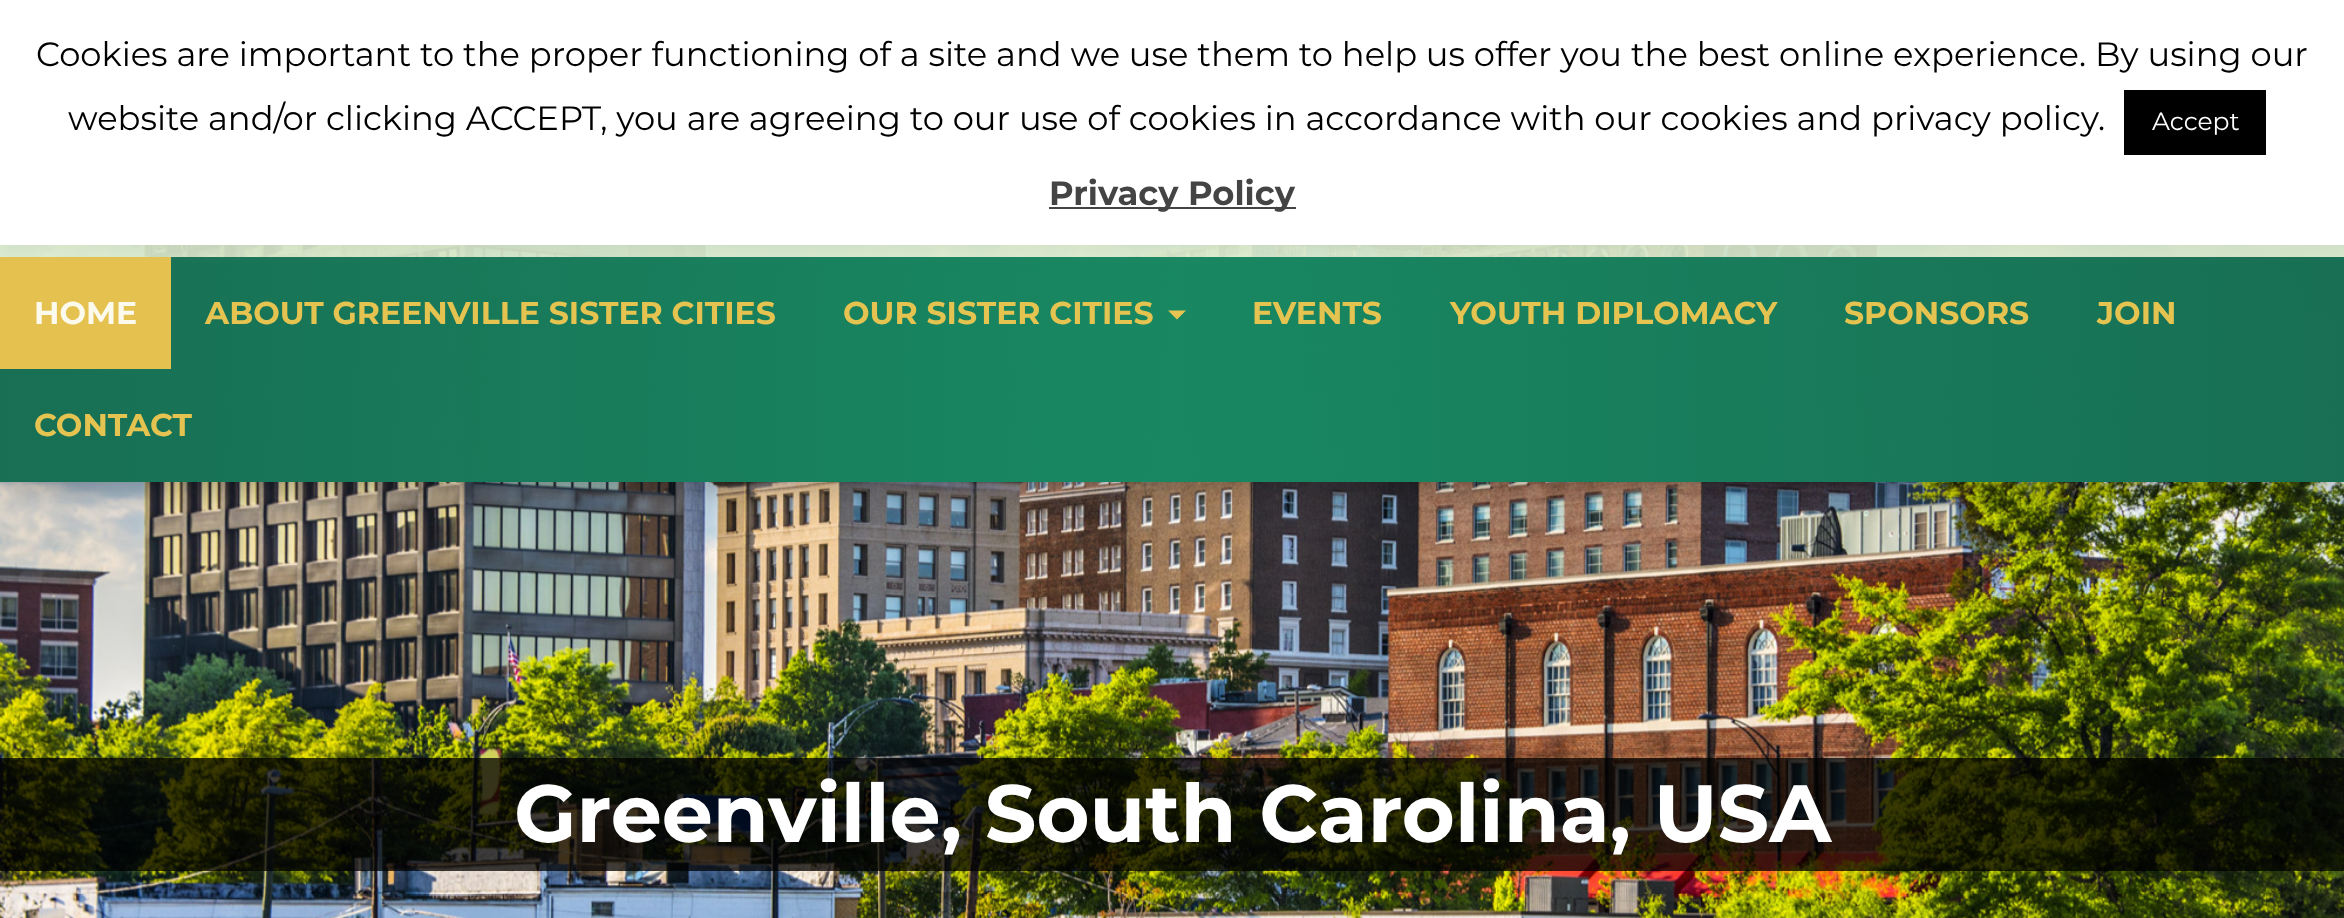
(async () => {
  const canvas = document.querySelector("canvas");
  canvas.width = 2344;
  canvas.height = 918;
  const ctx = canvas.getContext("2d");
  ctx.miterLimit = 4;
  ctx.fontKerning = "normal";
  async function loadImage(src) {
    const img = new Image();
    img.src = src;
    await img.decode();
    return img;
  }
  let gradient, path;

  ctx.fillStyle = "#ffffff";
  ctx.fillRect(0, 0, 2344, 918);
  ctx.drawImage(await loadImage("img/1.png"), 0, 245, 2344, 673);
  ctx.save();
  path = new Path2D("M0 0H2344V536H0ZM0 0H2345V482H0Z");
  ctx.clip(path, "evenodd");
  ctx.fillStyle = "rgba(0, 0, 0, 0.34)";
  ctx.filter = "blur(17px)";
  ctx.beginPath();
  ctx.rect(0, 2, 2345, 482);
  ctx.fill();
  ctx.filter = "none";
  ctx.restore();
  gradient = ctx.createLinearGradient(1172, 0, 1172, 482);
  gradient.addColorStop(0, "rgba(197, 227, 171, 0.9)");
  gradient.addColorStop(1, "rgba(242, 249, 237, 0.9)");
  ctx.fillStyle = gradient;
  ctx.fillRect(0, 245, 2344, 237);
  ctx.fillStyle = "rgba(248, 248, 248, 0.9)";
  ctx.fillRect(0, 257, 2344, 225);
  gradient = ctx.createLinearGradient(0, 369, 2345, 369);
  gradient.addColorStop(0, "rgba(0, 96, 66, 0.9)");
  gradient.addColorStop(0.5, "rgba(0, 124, 82, 0.9)");
  gradient.addColorStop(1, "rgba(0, 96, 66, 0.9)");
  ctx.fillStyle = gradient;
  ctx.fillRect(0, 257, 2344, 225);
  ctx.fillStyle = "rgba(252, 203, 79, 0.9)";
  ctx.fillRect(0, 257, 171, 112);
  ctx.fillStyle = "rgba(172, 171, 171, 0.3)";
  ctx.filter = "blur(11px)";
  ctx.beginPath();
  ctx.rect(0, -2, 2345, 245);
  ctx.fill();
  ctx.filter = "none";
  for (const [x, y, w, h, color] of [
    [0, 0, 2344, 245, "#ffffff"],
    [2124, 90, 142, 65, "#000000"],
    [1049, 207, 247, 2, "#444444"],
  ]) {
    ctx.fillStyle = color;
    ctx.fillRect(x, y, w, h);
  }
  ctx.fillStyle = "#e5c451";
  path = new Path2D("M1168 310.5H1186L1177 319.5Z");
  ctx.fill(path);
  ctx.fillStyle = "rgba(0, 0, 0, 0.75)";
  ctx.fillRect(0, 758, 2344, 113);
  ctx.font = "33.75px Montserrat";
  ctx.fillStyle = "#000000";
  ctx.fillText("Cookies are important to the proper functioning of a site and we use them to help us offer you the best online experience. By using our", 36, 66);
  ctx.fillText("website and/or clicking ACCEPT, you are agreeing to our use of cookies in accordance with our cookies and privacy policy.", 68, 130);
  ctx.font = "25px Montserrat";
  ctx.fillStyle = "#ffffff";
  ctx.fillText("Accept", 2152, 130);
  ctx.font = "bold 33.75px Montserrat";
  ctx.fillStyle = "#444444";
  ctx.fillText("Privacy Policy", 1049, 205);
  ctx.font = "bold 31.5px Montserrat";
  ctx.fillStyle = "#fcf9ed";
  ctx.fillText("HOME", 34, 324);
  ctx.fillStyle = "#e5c350";
  for (const [text, x, y] of [
    ["ABOUT GREENVILLE SISTER CITIES", 205, 324],
    ["OUR SISTER CITIES", 843, 324],
    ["EVENTS", 1252, 324],
    ["YOUTH DIPLOMACY", 1450, 324],
    ["SPONSORS", 1844, 324],
    ["JOIN", 2097, 324],
    ["CONTACT", 34, 436],
  ]) {
    ctx.fillText(text, x, y);
  }
  ctx.font = "bold 81px Montserrat";
  ctx.fillStyle = "#ffffff";
  ctx.fillText("Greenville, South Carolina, USA", 514, 842);
})();
